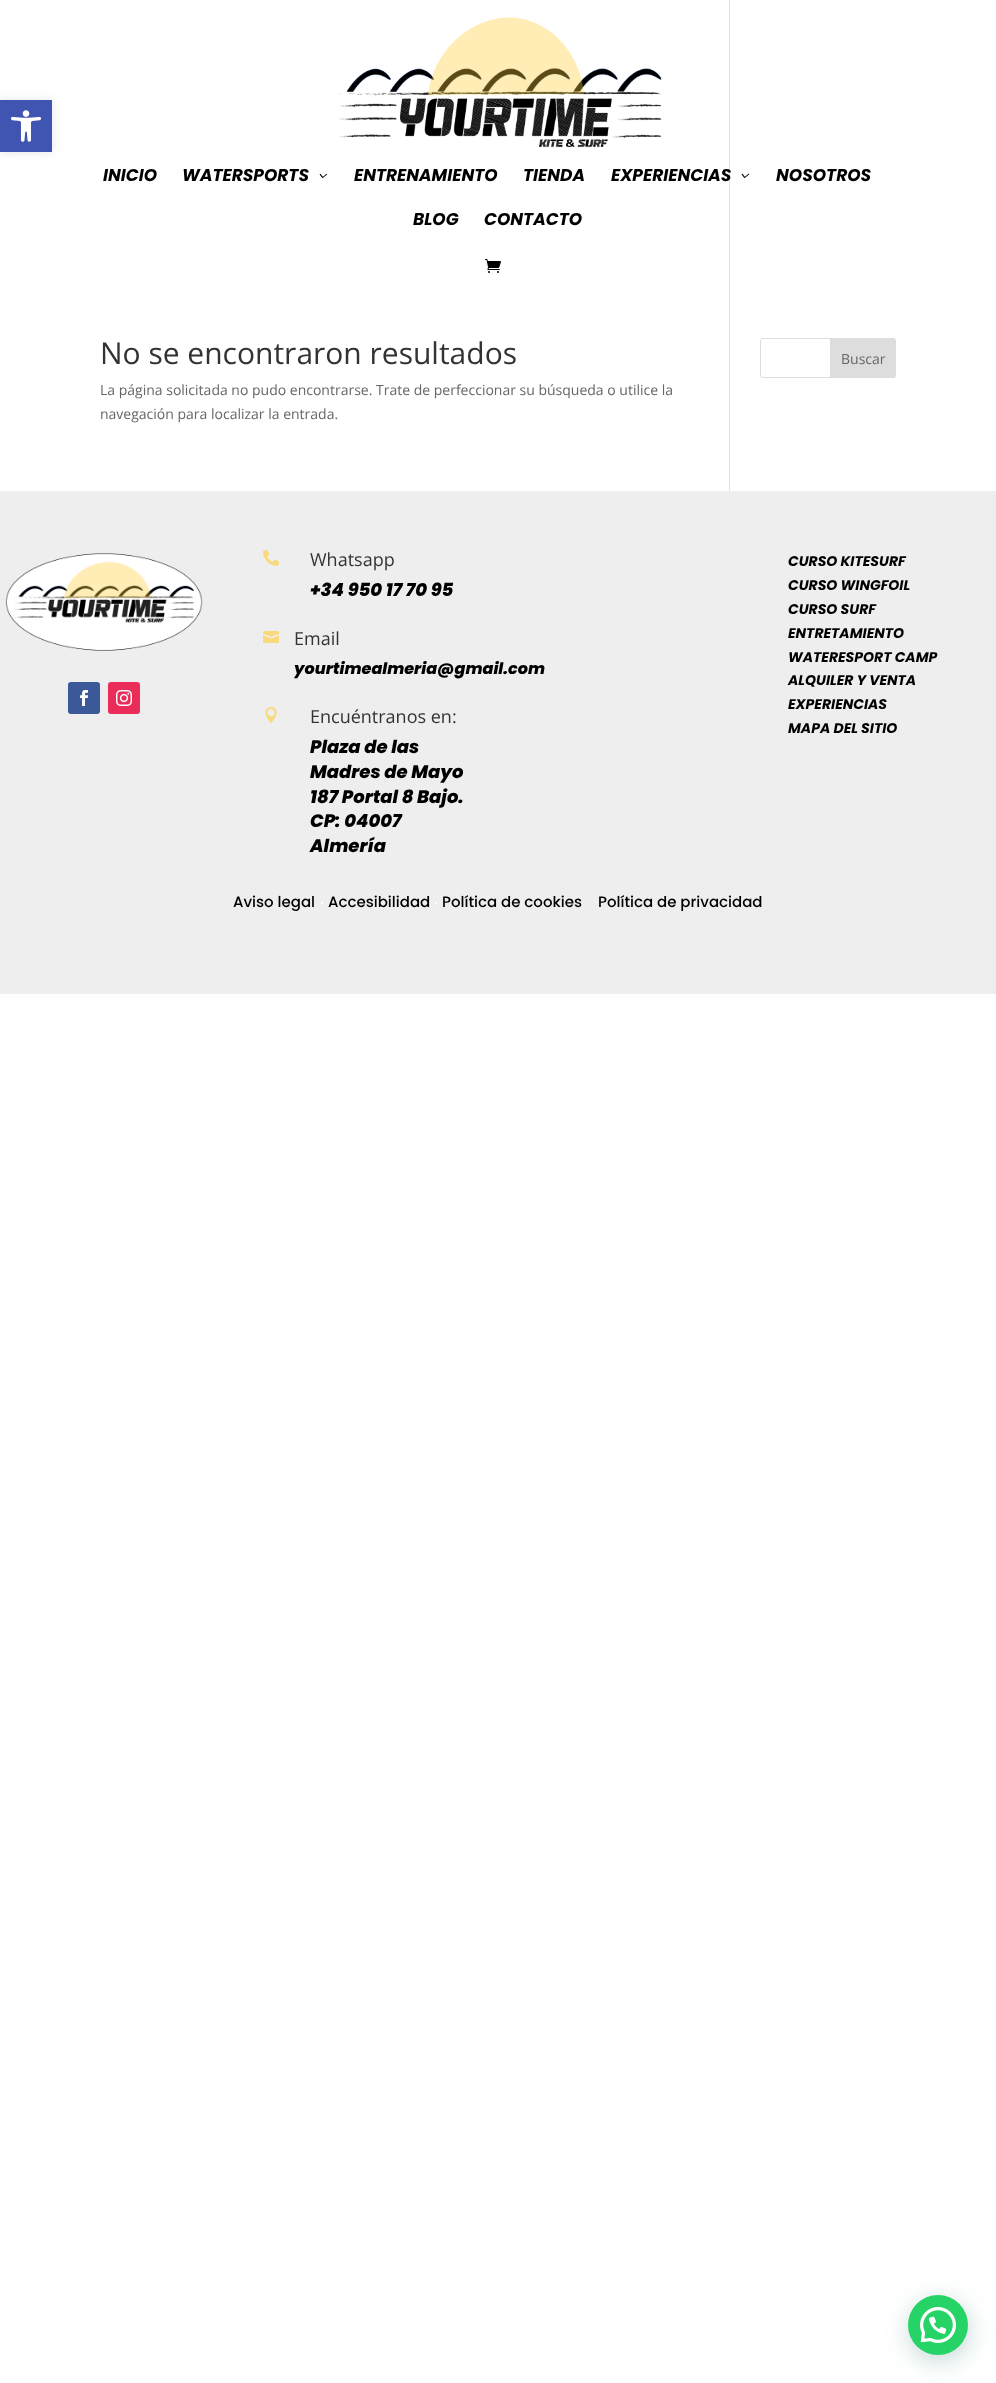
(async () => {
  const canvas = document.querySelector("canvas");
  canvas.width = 996;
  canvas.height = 2383;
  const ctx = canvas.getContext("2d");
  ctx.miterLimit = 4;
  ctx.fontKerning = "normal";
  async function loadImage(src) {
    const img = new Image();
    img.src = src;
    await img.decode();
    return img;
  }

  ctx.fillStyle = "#ffffff";
  ctx.fillRect(0, 0, 996, 2383);
  ctx.fillStyle = "rgba(0, 0, 0, 0.1)";
  ctx.filter = "blur(5px)";
  ctx.beginPath();
  ctx.rect(0, 100, 52, 52);
  ctx.fill();
  ctx.filter = "none";
  ctx.fillStyle = "#4054b2";
  ctx.fillRect(0, 100, 52, 52);
  ctx.drawImage(await loadImage("img/1.png"), 11, 110, 30, 32);
  ctx.drawImage(await loadImage("img/2.png"), 338, 17, 324, 131);
  ctx.drawImage(await loadImage("img/3.png"), 319, 173, 9, 5);
  ctx.drawImage(await loadImage("img/3.png"), 741, 173, 9, 5);
  ctx.drawImage(await loadImage("img/4.png"), 485, 259, 16, 14);
  ctx.fillStyle = "#e2e2e2";
  ctx.fillRect(729, 0, 1, 491);
  ctx.beginPath();
  ctx.roundRect(760.5, 338.5, 135, 39, 2.5);
  ctx.strokeStyle = "#dddddd";
  ctx.stroke();
  ctx.fillStyle = "#dddddd";
  ctx.beginPath();
  ctx.roundRect(830.5, 338.5, 65, 39, [0, 2.5, 2.5, 0]);
  ctx.fill();
  ctx.stroke();
  ctx.fillStyle = "#eeeeee";
  ctx.fillRect(0, 491, 996, 503);
  ctx.drawImage(await loadImage("img/5.png"), 5, 553, 198, 98);
  ctx.fillStyle = "#3b5998";
  ctx.beginPath();
  ctx.roundRect(68, 682, 32, 32, 3);
  ctx.fill();
  ctx.drawImage(await loadImage("img/6.png"), 80, 690, 8, 16);
  ctx.fillStyle = "#ea2c59";
  ctx.beginPath();
  ctx.roundRect(108, 682, 32, 32, 3);
  ctx.fill();
  ctx.drawImage(await loadImage("img/7.png"), 116, 690, 16, 16);
  ctx.drawImage(await loadImage("img/8.png"), 263, 550, 16, 16);
  ctx.drawImage(await loadImage("img/9.png"), 263, 631, 16, 12);
  ctx.drawImage(await loadImage("img/10.png"), 265, 707, 12, 16);
  ctx.fillStyle = "rgba(7, 94, 84, 0.24)";
  ctx.filter = "blur(12px)";
  ctx.beginPath();
  ctx.roundRect(909, 2301, 60, 60, 30);
  ctx.fill();
  ctx.filter = "none";
  ctx.fillStyle = "#25d366";
  ctx.beginPath();
  ctx.arc(938, 2325, 30, 0, Math.PI * 2);
  ctx.fill();
  ctx.drawImage(await loadImage("img/11.png"), 920, 2307, 36, 36);
  ctx.font = "italic bold 17px Poppins";
  ctx.fillStyle = "#000000";
  for (const [text, x, y] of [
    ["INICIO", 103, 181],
    ["WATERSPORTS", 182, 181],
    ["ENTRENAMIENTO", 354, 181],
    ["TIENDA", 523, 181],
    ["EXPERIENCIAS", 611, 181],
    ["NOSOTROS", 776, 181],
    ["BLOG", 413, 225],
    ["CONTACTO", 484, 225],
  ]) {
    ctx.fillText(text, x, y);
  }
  ctx.font = "30px Open Sans";
  ctx.fillStyle = "#333333";
  ctx.fillText("No se encontraron resultados", 100, 364);
  ctx.font = "14px Open Sans";
  ctx.fillStyle = "#666666";
  for (const [text, x, y] of [
    ["La página solicitada no pudo encontrarse. Trate de perfeccionar su búsqueda o utilice la", 100, 395],
    ["navegación para localizar la entrada.", 100, 419],
    ["Buscar", 841, 364],
  ]) {
    ctx.fillText(text, x, y);
  }
  ctx.font = "18px Open Sans";
  ctx.fillStyle = "#333333";
  ctx.fillText("Whatsapp", 310, 566);
  ctx.font = "italic 800 18px Poppins";
  ctx.fillStyle = "#000000";
  ctx.fillText("+34 950 17 70 95", 310, 596);
  ctx.font = "18px Open Sans";
  ctx.fillStyle = "#333333";
  ctx.fillText("Email", 294, 645);
  ctx.font = "italic 800 16px Poppins";
  ctx.fillStyle = "#000000";
  ctx.fillText("yourtimealmeria@gmail.com", 294, 674);
  ctx.font = "18px Open Sans";
  ctx.fillStyle = "#333333";
  ctx.fillText("Encuéntranos en:", 310, 723);
  ctx.font = "italic 800 18px Poppins";
  ctx.fillStyle = "#000000";
  for (const [text, x, y] of [
    ["Plaza de las", 310, 753],
    ["Madres de Mayo", 310, 778],
    ["187 Portal 8 Bajo.", 310, 803],
    ["CP: 04007", 310, 827],
    ["Almería", 310, 852],
  ]) {
    ctx.fillText(text, x, y);
  }
  ctx.font = "italic bold 14px Poppins";
  for (const [text, x, y] of [
    ["CURSO KITESURF", 788, 566],
    ["CURSO WINGFOIL", 788, 590],
    ["CURSO SURF", 788, 614],
    ["ENTRETAMIENTO", 788, 638],
    ["WATERESPORT CAMP", 788, 662],
    ["ALQUILER Y VENTA", 788, 685],
    ["EXPERIENCIAS", 788, 709],
    ["MAPA DEL SITIO", 788, 733],
  ]) {
    ctx.fillText(text, x, y);
  }
  ctx.font = "500 15px Poppins";
  ctx.fillText("Aviso legal", 233, 907);
  ctx.font = "500 15px Montserrat";
  ctx.fillStyle = "#ffffff";
  ctx.fillText("·", 320, 907);
  ctx.font = "500 15px Poppins";
  ctx.fillStyle = "#000000";
  ctx.fillText("Accesibilidad", 328, 907);
  ctx.font = "500 15px Montserrat";
  ctx.fillStyle = "#ffffff";
  ctx.fillText("·", 434, 907);
  ctx.font = "500 15px Poppins";
  ctx.fillStyle = "#000000";
  ctx.fillText("Política de cookies", 442, 907);
  ctx.fillText("Política de privacidad", 598, 907);
})();
